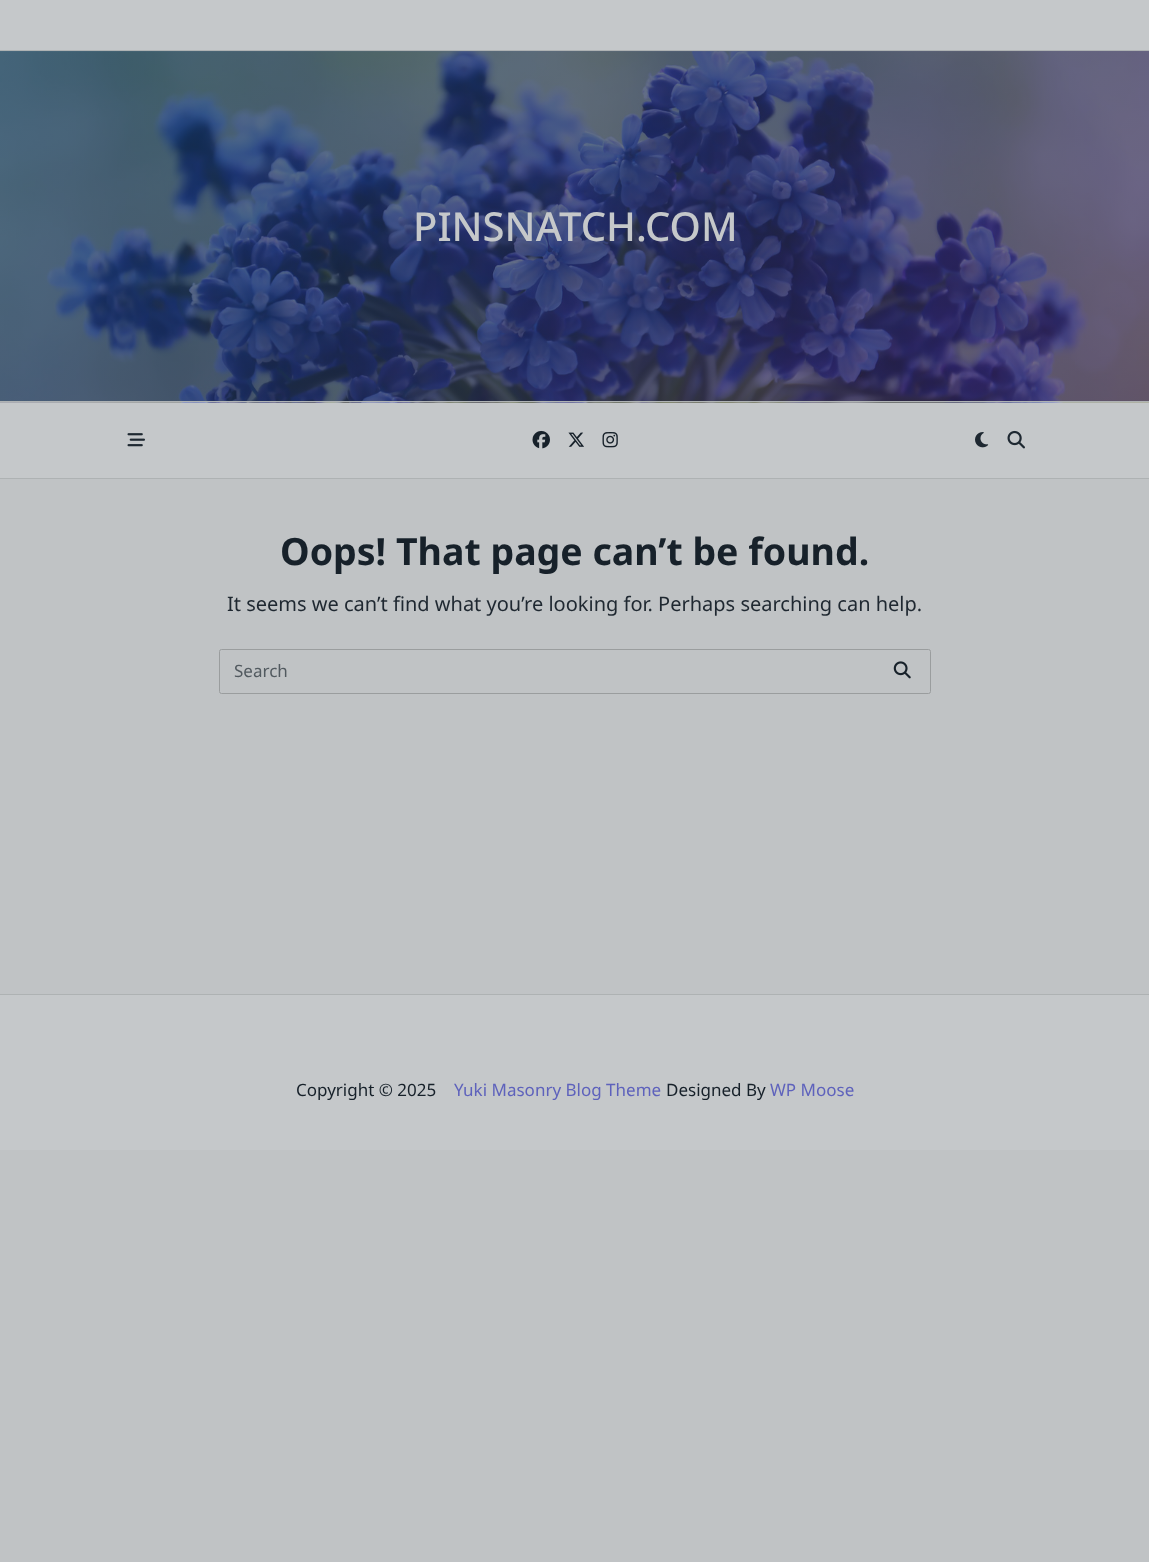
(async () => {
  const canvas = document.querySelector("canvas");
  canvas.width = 1149;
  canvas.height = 1562;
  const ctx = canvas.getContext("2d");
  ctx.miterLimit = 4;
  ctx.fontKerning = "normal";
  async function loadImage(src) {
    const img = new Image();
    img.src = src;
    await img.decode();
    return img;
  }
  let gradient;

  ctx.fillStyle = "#c0c3c5";
  ctx.fillRect(0, 0, 1149, 1562);
  ctx.fillStyle = "#c5c8ca";
  ctx.fillRect(0, 0, 1149, 50);
  ctx.fillStyle = "#aeb2b3";
  ctx.fillRect(0, 50, 1149, 1);
  ctx.drawImage(await loadImage("img/1.png"), 0, 51, 1149, 352);
  ctx.fillRect(0, 401, 1149, 1);
  gradient = ctx.createLinearGradient(200, -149, 950, 601);
  gradient.addColorStop(0, "rgba(11, 63, 94, 0.6)");
  gradient.addColorStop(1, "rgba(57, 34, 86, 0.6)");
  ctx.fillStyle = gradient;
  ctx.fillRect(0, 51, 1149, 350);
  ctx.fillStyle = "#c5c8ca";
  ctx.fillRect(0, 403, 1149, 75);
  ctx.fillStyle = "#aeb2b3";
  ctx.fillRect(0, 478, 1149, 1);
  ctx.drawImage(await loadImage("img/2.png"), 127, 433, 18, 14);
  ctx.drawImage(await loadImage("img/3.png"), 532, 430, 18, 19);
  ctx.drawImage(await loadImage("img/4.png"), 568, 432, 16, 15);
  ctx.drawImage(await loadImage("img/5.png"), 602, 432, 16, 16);
  ctx.drawImage(await loadImage("img/6.png"), 975, 432, 14, 16);
  ctx.drawImage(await loadImage("img/7.png"), 1007, 430, 18, 19);
  ctx.beginPath();
  ctx.roundRect(219.5, 649.5, 711, 44, 2);
  ctx.strokeStyle = "#9a9d9e";
  ctx.stroke();
  ctx.drawImage(await loadImage("img/8.png"), 893, 661, 18, 18);
  ctx.fillStyle = "#c5c8ca";
  ctx.fillRect(0, 995, 1149, 155);
  ctx.fillStyle = "#aeb2b3";
  ctx.fillRect(0, 994, 1149, 1);
  ctx.font = "500 40px Noto Sans";
  ctx.fillStyle = "#c5c8ca";
  ctx.fillText("PINSNATCH.COM", 413, 241);
  ctx.font = "bold 37.5px Noto Sans";
  ctx.fillStyle = "#17212a";
  ctx.fillText("Oops! That page can’t be found.", 280, 565);
  ctx.font = "20px Noto Sans";
  ctx.fillStyle = "#1f2831";
  ctx.fillText("It seems we can’t find what you’re looking for. Perhaps searching can help.", 227, 611);
  ctx.font = "17px Noto Sans";
  ctx.fillStyle = "#525a60";
  ctx.fillText("Search", 234, 677);
  ctx.fillStyle = "#17212a";
  ctx.fillText("Copyright © 2025", 296, 1096);
  ctx.fillStyle = "#5e62bc";
  ctx.fillText("Yuki Masonry Blog Theme", 454, 1096);
  ctx.fillStyle = "#17212a";
  ctx.fillText("Designed By", 666, 1096);
  ctx.fillStyle = "#5e62bc";
  ctx.fillText("WP Moose", 770, 1096);
})();
